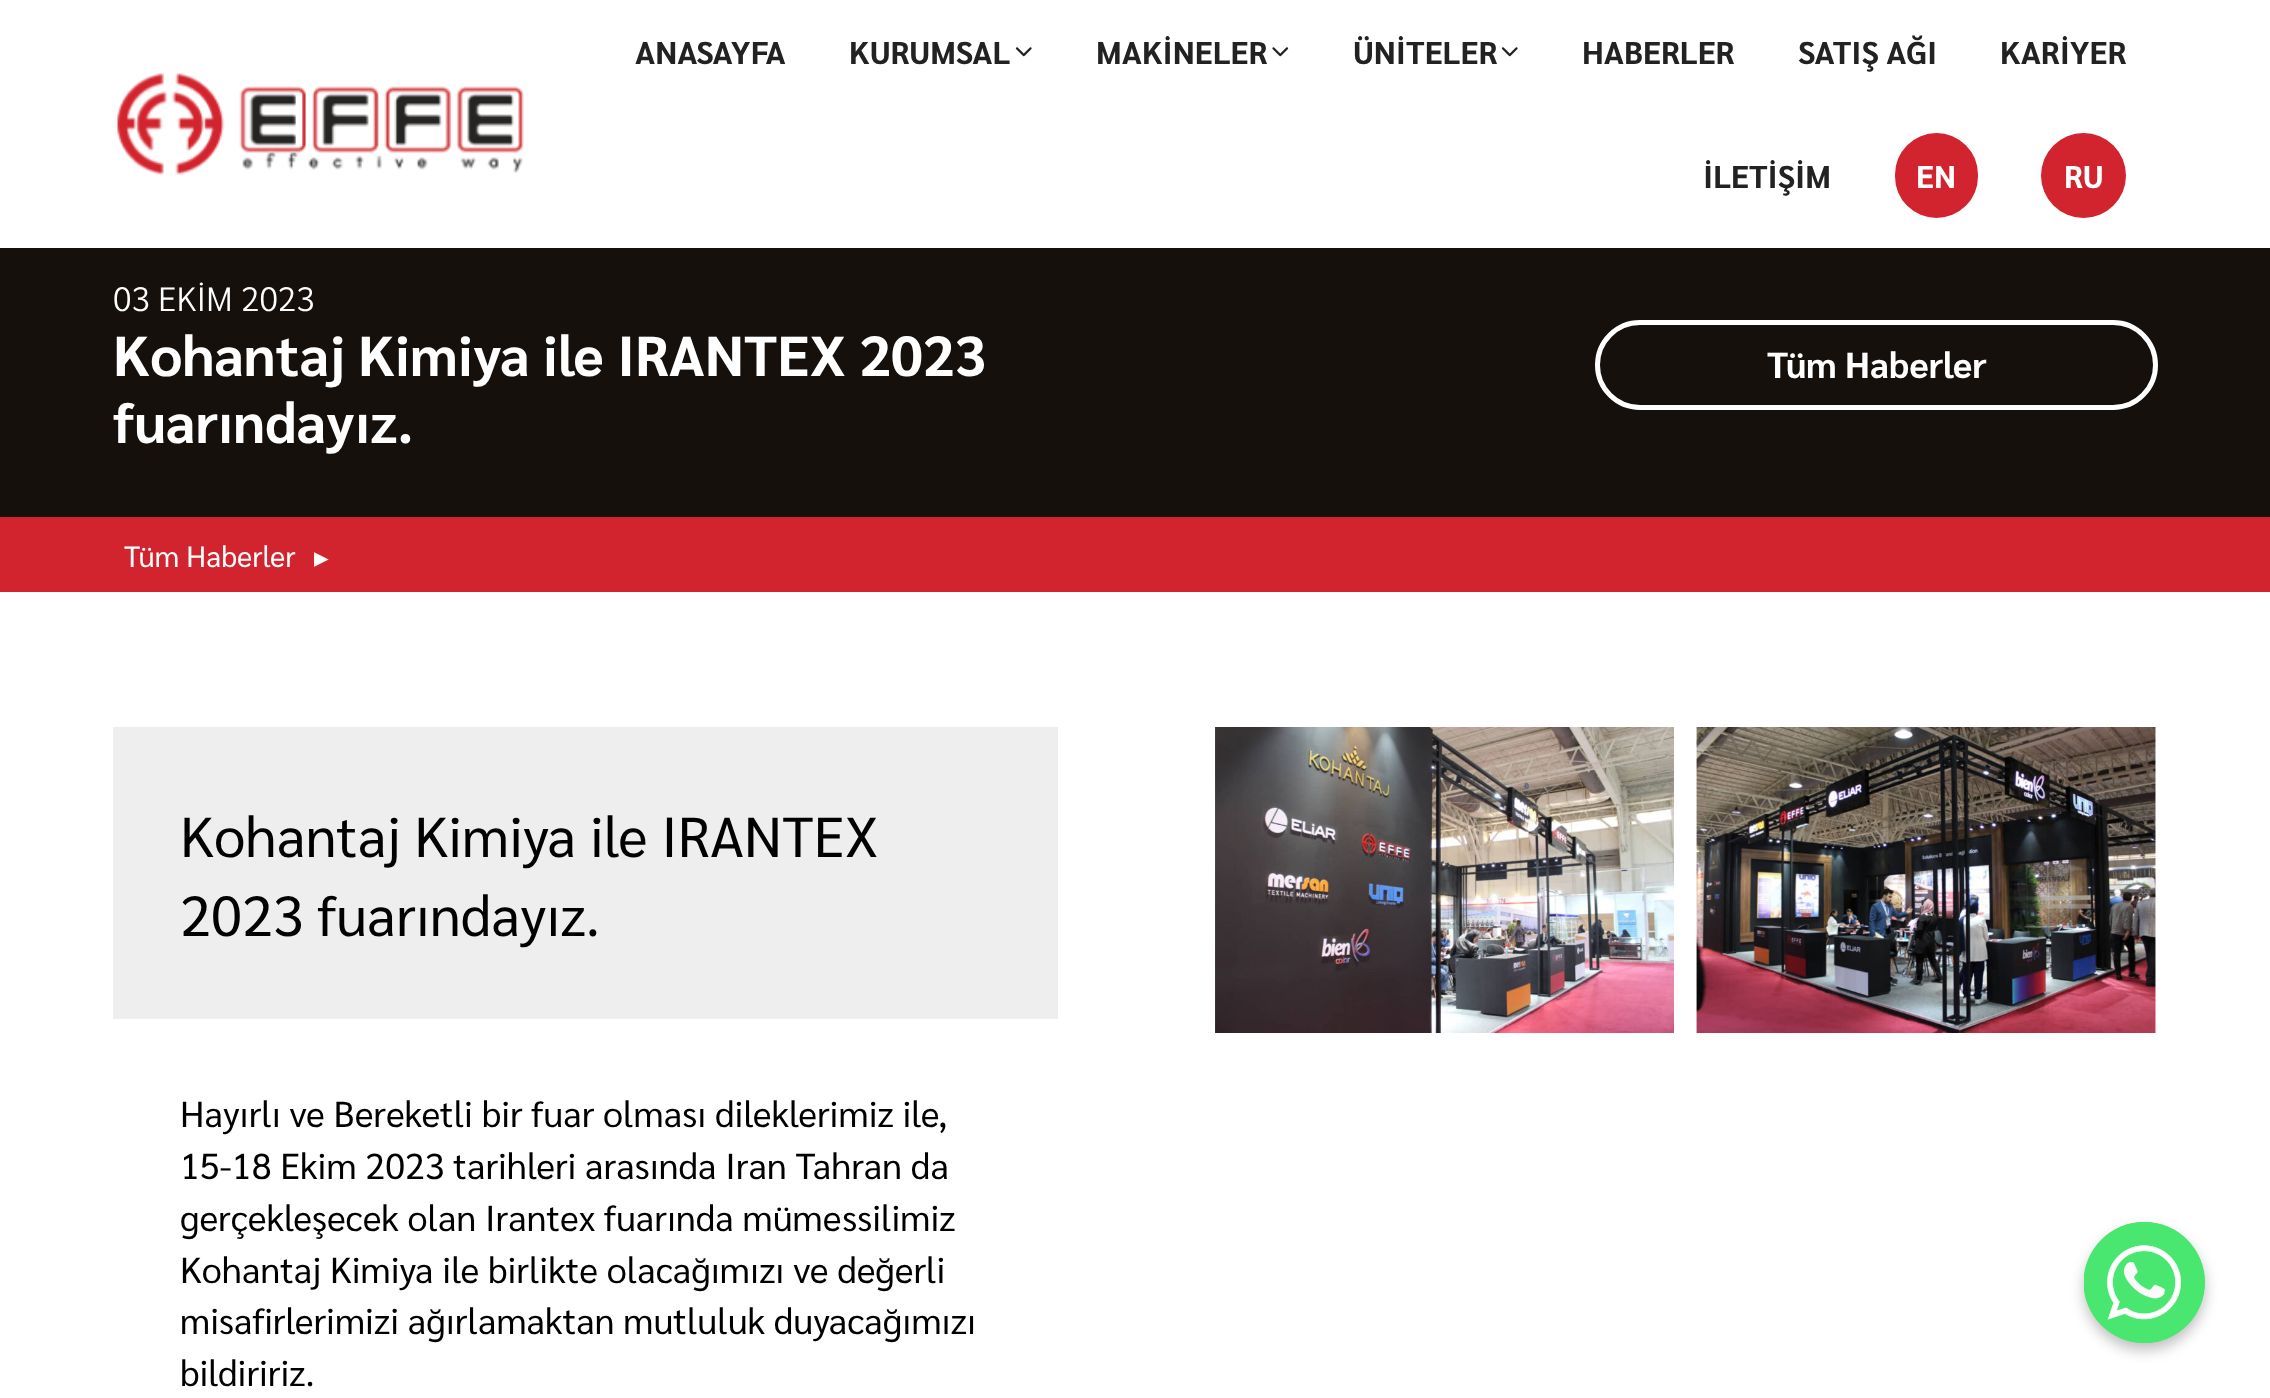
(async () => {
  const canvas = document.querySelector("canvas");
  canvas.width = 2270;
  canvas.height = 1398;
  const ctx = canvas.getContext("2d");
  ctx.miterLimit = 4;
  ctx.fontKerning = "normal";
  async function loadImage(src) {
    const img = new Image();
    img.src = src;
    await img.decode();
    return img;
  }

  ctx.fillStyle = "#ffffff";
  ctx.fillRect(0, 0, 2270, 1398);
  ctx.drawImage(await loadImage("img/1.png"), 117, 73, 407, 102);
  ctx.drawImage(await loadImage("img/2.png"), 1015, 47, 17, 10);
  ctx.drawImage(await loadImage("img/3.png"), 1272, 47, 17, 10);
  ctx.drawImage(await loadImage("img/2.png"), 1501, 47, 17, 10);
  ctx.fillStyle = "#d2242e";
  ctx.beginPath();
  ctx.roundRect(1895, 133, 83, 85, 41.5);
  ctx.fill();
  ctx.beginPath();
  ctx.arc(2083.5, 175.5, 42.5, 0, Math.PI * 2);
  ctx.fill();
  ctx.drawImage(await loadImage("img/4.png"), 0, 248, 2270, 269);
  ctx.beginPath();
  ctx.roundRect(1597.5, 322.5, 558, 85, 42.5);
  ctx.strokeStyle = "#ffffff";
  ctx.lineWidth = 5;
  ctx.stroke();
  ctx.fillRect(0, 517, 2270, 75);
  ctx.fillStyle = "#eeeeee";
  ctx.fillRect(113, 727, 945, 292);
  ctx.drawImage(await loadImage("img/5.png"), 1215, 727, 459, 306);
  ctx.drawImage(await loadImage("img/6.png"), 1696, 727, 460, 306);
  ctx.fillStyle = "rgba(0, 0, 0, 0.25)";
  ctx.filter = "blur(7px)";
  ctx.beginPath();
  ctx.roundRect(2084, 1229, 121, 121, 60.5);
  ctx.fill();
  ctx.filter = "none";
  ctx.fillStyle = "#49e670";
  ctx.beginPath();
  ctx.arc(2144.5, 1282.5, 60.5, 0, Math.PI * 2);
  ctx.fill();
  ctx.drawImage(await loadImage("img/7.png"), 2084, 1222, 121, 121);
  ctx.font = "bold 31.5px Sarabun";
  ctx.fillStyle = "#222222";
  for (const [text, x, y] of [
    ["ANASAYFA", 635, 64],
    ["KURUMSAL", 849, 64],
    ["MAKİNELER", 1096, 64],
    ["ÜNİTELER", 1353, 64],
    ["HABERLER", 1582, 64],
    ["SATIŞ AĞI", 1798, 64],
    ["KARİYER", 2000, 64],
    ["İLETİŞİM", 1703, 188],
  ]) {
    ctx.fillText(text, x, y);
  }
  ctx.fillStyle = "#ffffff";
  ctx.fillText("EN", 1916, 188);
  ctx.fillText("RU", 2064, 188);
  ctx.font = "300 33.75px Sarabun";
  ctx.fillText("03 EKİM 2023", 113, 311);
  ctx.font = "bold 56.25px Sarabun";
  ctx.fillText("Kohantaj Kimiya ile IRANTEX 2023", 113, 376);
  ctx.fillText("fuarındayız.", 113, 443);
  ctx.font = "bold 36px Sarabun";
  ctx.fillText("Tüm Haberler", 1767, 378);
  ctx.font = "29.25px Sarabun";
  ctx.fillText("Tüm Haberler", 124, 567);
  ctx.font = "29.25px DejaVu Sans";
  ctx.fillText("▸", 314, 567);
  ctx.font = "56.25px Sarabun";
  ctx.fillStyle = "#000000";
  ctx.fillText("Kohantaj Kimiya ile IRANTEX", 180, 857);
  ctx.fillText("2023 fuarındayız.", 180, 936);
  ctx.font = "36px Sarabun";
  for (const [text, x, y] of [
    ["Hayırlı ve Bereketli bir fuar olması dileklerimiz ile,", 180, 1127],
    ["15-18 Ekim 2023 tarihleri arasında Iran Tahran da", 180, 1179],
    ["gerçekleşecek olan Irantex fuarında mümessilimiz", 180, 1231],
    ["Kohantaj Kimiya ile birlikte olacağımızı ve değerli", 180, 1283],
    ["misafirlerimizi ağırlamaktan mutluluk duyacağımızı", 180, 1334],
    ["bildiririz.", 180, 1386],
  ]) {
    ctx.fillText(text, x, y);
  }
})();
